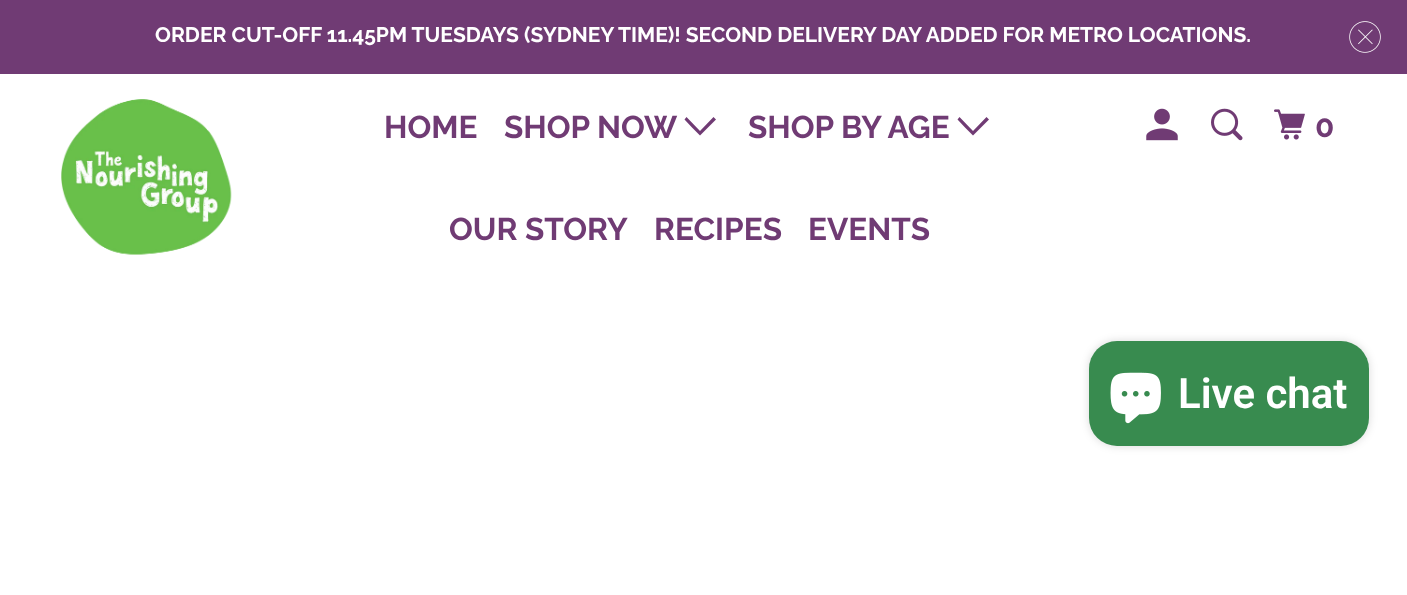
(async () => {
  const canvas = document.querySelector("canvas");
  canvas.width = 1407;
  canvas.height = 595;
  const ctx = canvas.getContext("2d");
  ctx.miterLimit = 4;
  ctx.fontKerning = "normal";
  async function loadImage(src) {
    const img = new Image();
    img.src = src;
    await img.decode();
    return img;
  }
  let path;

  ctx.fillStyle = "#ffffff";
  ctx.fillRect(0, 0, 1407, 595);
  ctx.fillStyle = "#703b74";
  ctx.fillRect(0, 0, 1407, 74);
  ctx.drawImage(await loadImage("img/1.png"), 1349, 21, 32, 32);
  ctx.drawImage(await loadImage("img/2.png"), 61, 99, 171, 156);
  path = new Path2D("M692 127.5L684.5 119.5L686.5 117L700 131L713.5 117L716 119.5L700 135.5Z");
  ctx.fill(path);
  path = new Path2D("M965 127.5L957.5 119.5L959.5 117L973 131L986.5 117L989 119.5L973 135.5Z");
  ctx.fill(path);
  ctx.drawImage(await loadImage("img/3.png"), 1146, 108, 32, 33);
  ctx.drawImage(await loadImage("img/4.png"), 1211, 108, 32, 33);
  ctx.drawImage(await loadImage("img/5.png"), 1274, 109, 31, 31);
  ctx.fillStyle = "rgba(0, 0, 0, 0.15)";
  ctx.filter = "blur(4.5px)";
  ctx.beginPath();
  ctx.roundRect(1089, 341, 280, 105, 28);
  ctx.fill();
  ctx.filter = "none";
  ctx.fillStyle = "#388b4f";
  ctx.beginPath();
  ctx.roundRect(1089, 341, 280, 105, 28);
  ctx.fill();
  ctx.drawImage(await loadImage("img/6.png"), 1110, 372, 51, 52);
  ctx.font = "bold 21px Raleway";
  ctx.fillStyle = "#ffffff";
  ctx.fillText("ORDER CUT-OFF 11.45PM TUESDAYS (SYDNEY TIME)! SECOND DELIVERY DAY ADDED FOR METRO LOCATIONS.", 155, 42);
  ctx.font = "bold 31.5px Raleway";
  ctx.fillStyle = "#703b74";
  for (const [text, x, y] of [
    ["HOME", 384, 138],
    ["SHOP NOW", 504, 138],
    ["SHOP BY AGE", 748, 138],
    ["OUR STORY", 449, 240],
    ["RECIPES", 654, 240],
    ["EVENTS", 808, 240],
    ["0", 1315, 137],
  ]) {
    ctx.fillText(text, x, y);
  }
  ctx.font = "600 42px Roboto";
  ctx.fillStyle = "#ffffff";
  ctx.fillText("Live chat", 1178, 408);
})();
